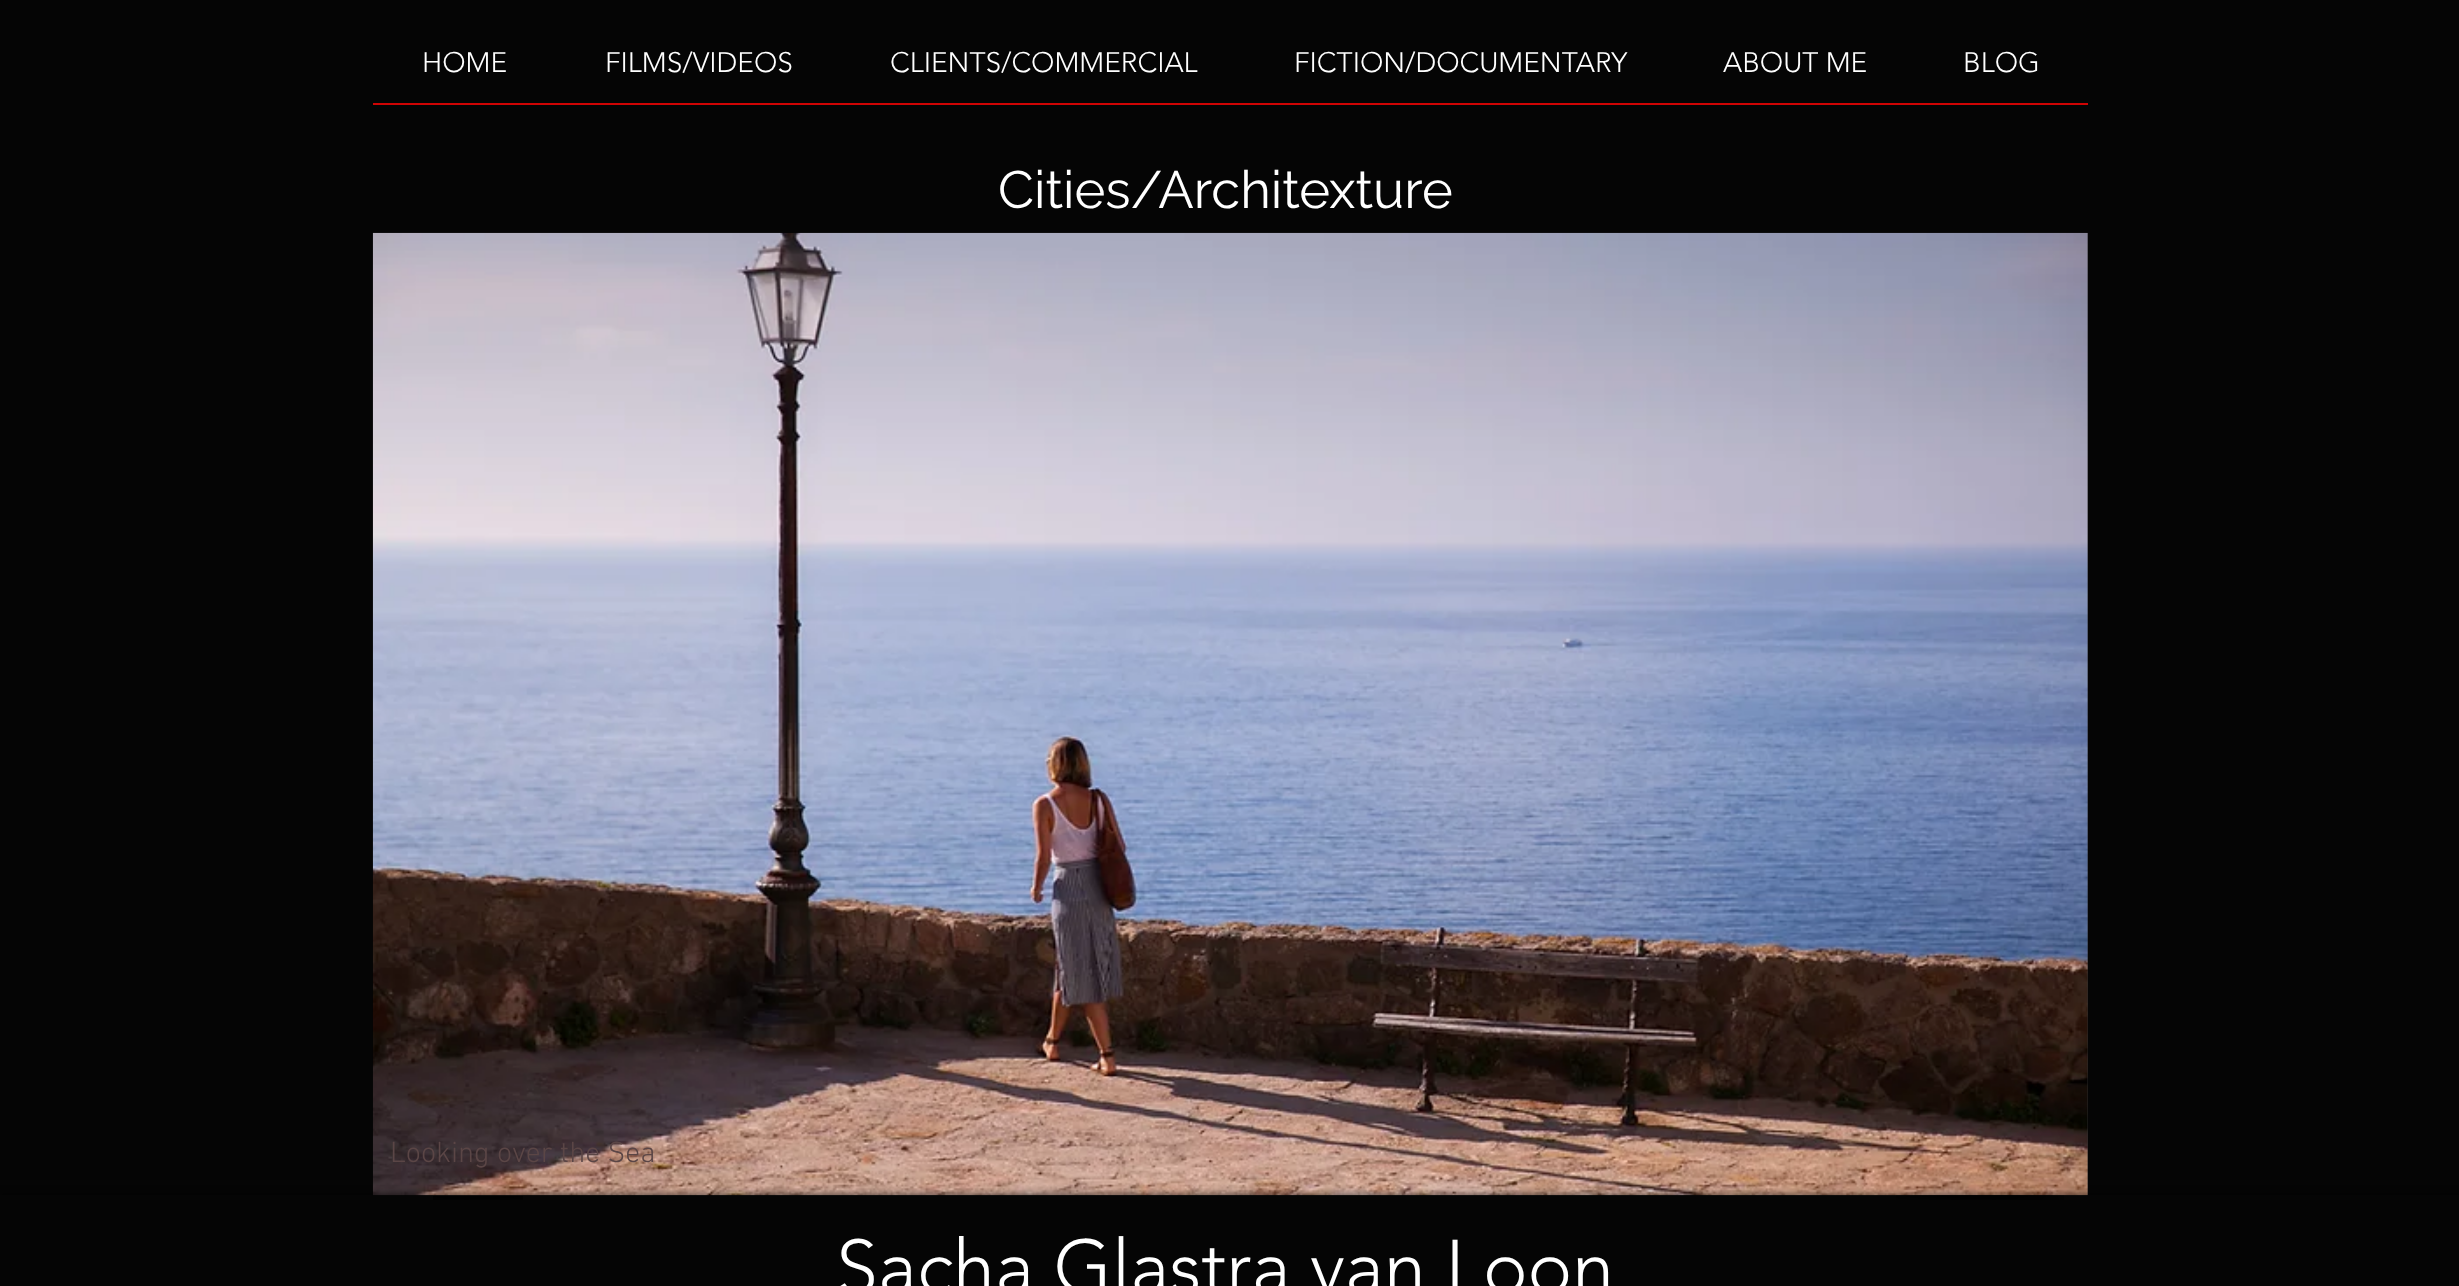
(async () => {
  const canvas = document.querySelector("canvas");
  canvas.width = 2459;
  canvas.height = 1286;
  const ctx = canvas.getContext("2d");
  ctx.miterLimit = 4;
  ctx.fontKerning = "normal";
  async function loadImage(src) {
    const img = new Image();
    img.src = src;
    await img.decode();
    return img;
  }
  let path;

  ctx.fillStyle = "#050505";
  ctx.fillRect(0, 0, 2459, 1286);
  ctx.fillStyle = "#cf0404";
  ctx.fillRect(373, 103, 1715, 2);
  ctx.fillStyle = "#2f2e2e";
  ctx.fillRect(2087, 233, 1, 962);
  ctx.drawImage(await loadImage("img/1.png"), 372, 232, 1716, 964);
  ctx.drawImage(await loadImage("img/2.png"), 433, 1196, 90, 4);
  ctx.drawImage(await loadImage("img/3.png"), 1896, 1195, 168, 5);
  ctx.save();
  path = new Path2D("M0 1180H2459V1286H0ZM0 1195H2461V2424H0Z");
  ctx.clip(path, "evenodd");
  ctx.fillStyle = "rgba(0, 0, 0, 0.7)";
  ctx.filter = "blur(4.5px)";
  ctx.beginPath();
  ctx.rect(0, 1195, 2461, 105);
  ctx.fill();
  ctx.filter = "none";
  ctx.restore();
  ctx.font = "300 28px 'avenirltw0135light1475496'";
  ctx.fillStyle = "#ffffff";
  for (const [text, x, y] of [
    ["HOME", 422, 72],
    ["FILMS/VIDEOS", 605, 72],
    ["CLIENTS/COMMERCIAL", 890, 72],
    ["FICTION/DOCUMENTARY", 1294, 72],
    ["ABOUT ME", 1723, 72],
    ["BLOG", 1963, 72],
  ]) {
    ctx.fillText(text, x, y);
  }
  ctx.font = "52.5px Raleway";
  ctx.fillText("Cities/Architexture", 998, 208);
  ctx.font = "300 29.75px 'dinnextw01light'";
  ctx.fillStyle = "#5b4646";
  ctx.fillText("Looking over the Sea", 390, 1162);
  ctx.font = "300 75.25px 'avenirltw0135light1475496'";
  ctx.fillStyle = "#ffffff";
  ctx.fillText("Sacha Glastra van Loon", 836, 1293);
})();
